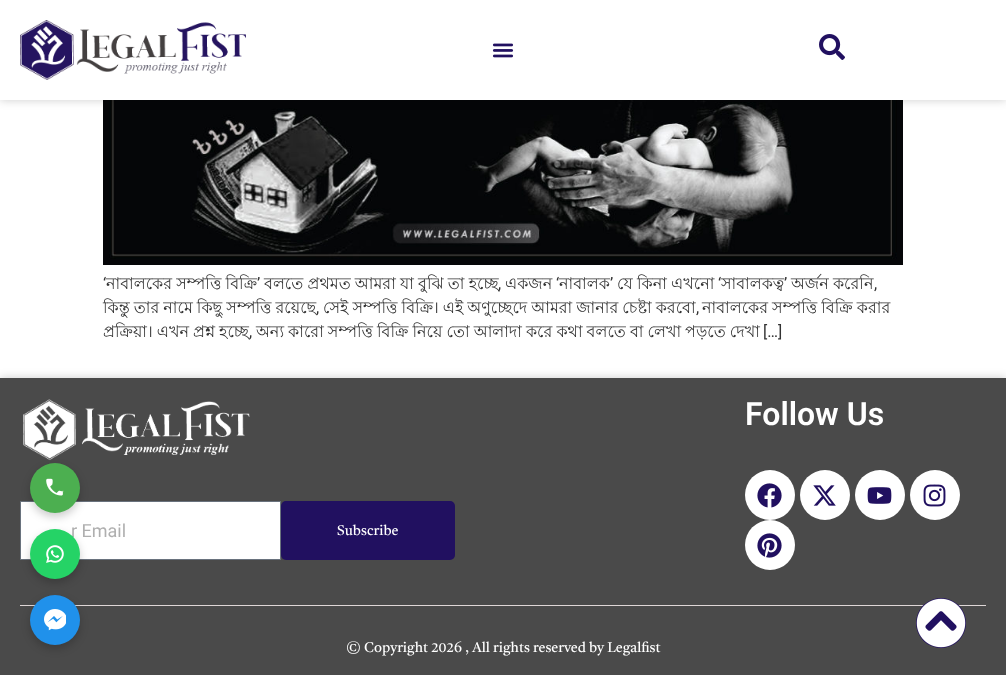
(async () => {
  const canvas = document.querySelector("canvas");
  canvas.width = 1006;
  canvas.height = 675;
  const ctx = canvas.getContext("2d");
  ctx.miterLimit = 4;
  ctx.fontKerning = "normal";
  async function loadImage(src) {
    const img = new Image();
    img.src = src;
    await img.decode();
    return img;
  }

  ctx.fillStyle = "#ffffff";
  ctx.fillRect(0, 0, 1006, 675);
  ctx.drawImage(await loadImage("img/4.png"), 103, 100, 800, 165);
  ctx.fillStyle = "rgba(0, 0, 0, 0.2)";
  ctx.filter = "blur(5px)";
  ctx.beginPath();
  ctx.rect(0, 0, 1006, 100);
  ctx.fill();
  ctx.filter = "none";
  ctx.fillStyle = "#ffffff";
  ctx.fillRect(0, 0, 1006, 100);
  ctx.drawImage(await loadImage("img/1.png"), 20, 20, 226, 60);
  ctx.drawImage(await loadImage("img/2.png"), 492, 43, 22, 15);
  ctx.drawImage(await loadImage("img/3.png"), 819, 34, 26, 26);
  ctx.fillStyle = "rgba(0, 0, 0, 0.2)";
  ctx.filter = "blur(5px)";
  ctx.beginPath();
  ctx.rect(0, 378, 1006, 297);
  ctx.fill();
  ctx.filter = "none";
  ctx.fillStyle = "#4a4a4a";
  ctx.fillRect(0, 378, 1006, 297);
  ctx.drawImage(await loadImage("img/13.png"), 23, 399, 227, 62);
  ctx.fillStyle = "#ffffff";
  ctx.beginPath();
  ctx.rect(20.5, 501.5, 260, 58);
  ctx.fill();
  ctx.strokeStyle = "#69727d";
  ctx.stroke();
  ctx.fillStyle = "rgba(0, 0, 0, 0.2)";
  ctx.filter = "blur(4px)";
  ctx.beginPath();
  ctx.roundRect(30, 467, 50, 50, 25);
  ctx.fill();
  ctx.filter = "none";
  ctx.fillStyle = "#4caf50";
  ctx.beginPath();
  ctx.arc(55, 488, 25, 0, Math.PI * 2);
  ctx.fill();
  ctx.drawImage(await loadImage("img/5.png"), 46, 478, 18, 18);
  ctx.fillStyle = "rgba(0, 0, 0, 0.2)";
  ctx.filter = "blur(4px)";
  ctx.beginPath();
  ctx.roundRect(30, 533, 50, 50, 25);
  ctx.fill();
  ctx.filter = "none";
  ctx.fillStyle = "#dfd7d7";
  ctx.fillRect(20, 605, 966, 1);
  ctx.fillStyle = "rgba(0, 0, 0, 0.2)";
  ctx.filter = "blur(4px)";
  ctx.beginPath();
  ctx.roundRect(30, 599, 50, 50, 25);
  ctx.fill();
  ctx.filter = "none";
  ctx.fillStyle = "#2091eb";
  ctx.beginPath();
  ctx.arc(55, 620, 25, 0, Math.PI * 2);
  ctx.fill();
  ctx.drawImage(await loadImage("img/7.png"), 44, 609, 22, 22);
  ctx.fillStyle = "#ffffff";
  ctx.beginPath();
  ctx.arc(770, 495, 25, 0, Math.PI * 2);
  ctx.fill();
  ctx.drawImage(await loadImage("img/8.png"), 757, 483, 25, 25);
  ctx.beginPath();
  ctx.arc(825, 495, 25, 0, Math.PI * 2);
  ctx.fill();
  ctx.drawImage(await loadImage("img/9.png"), 813, 485, 23, 21);
  ctx.beginPath();
  ctx.arc(880, 495, 25, 0, Math.PI * 2);
  ctx.fill();
  ctx.drawImage(await loadImage("img/10.png"), 867, 487, 25, 17);
  ctx.beginPath();
  ctx.arc(935, 495, 25, 0, Math.PI * 2);
  ctx.fill();
  ctx.drawImage(await loadImage("img/11.png"), 923, 484, 23, 23);
  ctx.beginPath();
  ctx.arc(770, 545, 25, 0, Math.PI * 2);
  ctx.fill();
  ctx.drawImage(await loadImage("img/12.png"), 757, 533, 25, 25);
  ctx.fillStyle = "#211060";
  ctx.beginPath();
  ctx.roundRect(281, 501, 174, 59, 5);
  ctx.fill();
  ctx.beginPath();
  ctx.arc(941, 623, 25, 0, Math.PI * 2);
  ctx.fill();
  ctx.drawImage(await loadImage("img/14.png"), 916, 598, 50, 50);
  ctx.font = "16px Roboto";
  ctx.fillStyle = "#333333";
  ctx.fillText("‘", 103, 289);
  ctx.wordSpacing = "-0.25px";
  ctx.font = "16px Lohit Bengali";
  ctx.fillText("নাবালকের সম্পত্তি বিক্রি", 106, 289);
  ctx.wordSpacing = "0px";
  ctx.font = "16px Roboto";
  ctx.fillText("’", 257, 289);
  ctx.wordSpacing = "-0.25px";
  ctx.font = "16px Lohit Bengali";
  ctx.fillText("বলতে প্রথমত আমরা যা বুঝি তা হচ্ছে", 264, 289);
  ctx.wordSpacing = "0px";
  ctx.fillText("একজন", 505, 289);
  ctx.font = "16px Roboto";
  ctx.fillText("‘", 556, 289);
  ctx.font = "16px Lohit Bengali";
  ctx.fillText("নাবালক", 559, 289);
  ctx.font = "16px Roboto";
  ctx.fillText("’", 610, 289);
  ctx.wordSpacing = "-0.25px";
  ctx.font = "16px Lohit Bengali";
  ctx.fillText("যে কিনা এখনো", 617, 289);
  ctx.wordSpacing = "0px";
  ctx.font = "16px Roboto";
  ctx.fillText("‘", 718, 289);
  ctx.font = "16px Lohit Bengali";
  ctx.fillText("সাবালকত্ব", 721, 289);
  ctx.font = "16px Roboto";
  ctx.fillText("’", 784, 289);
  ctx.wordSpacing = "-0.25px";
  ctx.font = "16px Lohit Bengali";
  ctx.fillText("অর্জন করেনি", 791, 289);
  ctx.wordSpacing = "0px";
  ctx.font = "16px Roboto";
  ctx.fillText(",", 498, 289);
  ctx.fillText(",", 874, 289);
  ctx.wordSpacing = "-0.4px";
  ctx.font = "16px Lohit Bengali";
  ctx.fillText("কিন্তু তার নামে কিছু সম্পত্তি রয়েছে", 103, 313);
  ctx.wordSpacing = "0px";
  ctx.font = "16px Roboto";
  ctx.fillText(",", 316, 313);
  ctx.wordSpacing = "-0.4px";
  ctx.font = "16px Lohit Bengali";
  ctx.fillText("সেই সম্পত্তি বিক্রি। এই অণুচ্ছেদে আমরা জানার চেষ্টা করবো", 323, 313);
  ctx.wordSpacing = "0px";
  ctx.font = "16px Roboto";
  ctx.fillText(",", 696, 313);
  ctx.wordSpacing = "-0.4px";
  ctx.font = "16px Lohit Bengali";
  ctx.fillText("নাবালকের সম্পত্তি বিক্রি করার", 702, 313);
  ctx.fillText("প্রক্রিয়া। এখন প্রশ্ন হচ্ছে", 103, 337);
  ctx.wordSpacing = "0px";
  ctx.font = "16px Roboto";
  ctx.fillText(",", 249, 337);
  ctx.wordSpacing = "-0.4px";
  ctx.font = "16px Lohit Bengali";
  ctx.fillText("অন্য কারো সম্পত্তি বিক্রি নিয়ে তো আলাদা করে কথা বলতে বা লেখা পড়তে দেখা", 256, 337);
  ctx.wordSpacing = "0px";
  ctx.font = "16px Roboto";
  ctx.fillText("[…]", 763, 337);
  ctx.font = "600 32px Roboto";
  ctx.fillStyle = "#ffffff";
  ctx.fillText("Follow Us", 745, 425);
  ctx.font = "18px Roboto";
  ctx.fillStyle = "#afafaf";
  ctx.fillText("r Email", 71, 537);
  ctx.fillStyle = "#25d366";
  ctx.beginPath();
  ctx.arc(55, 554, 25, 0, Math.PI * 2);
  ctx.fill();
  ctx.drawImage(await loadImage("img/6.png"), 46, 545, 18, 18);
  ctx.font = "14px Tiro Bangla";
  ctx.fillStyle = "#ffffff";
  ctx.fillText("Subscribe", 337, 535);
  ctx.fillText("© Copyright 2026 , All rights reserved by Legalfist", 346, 652);
})();
